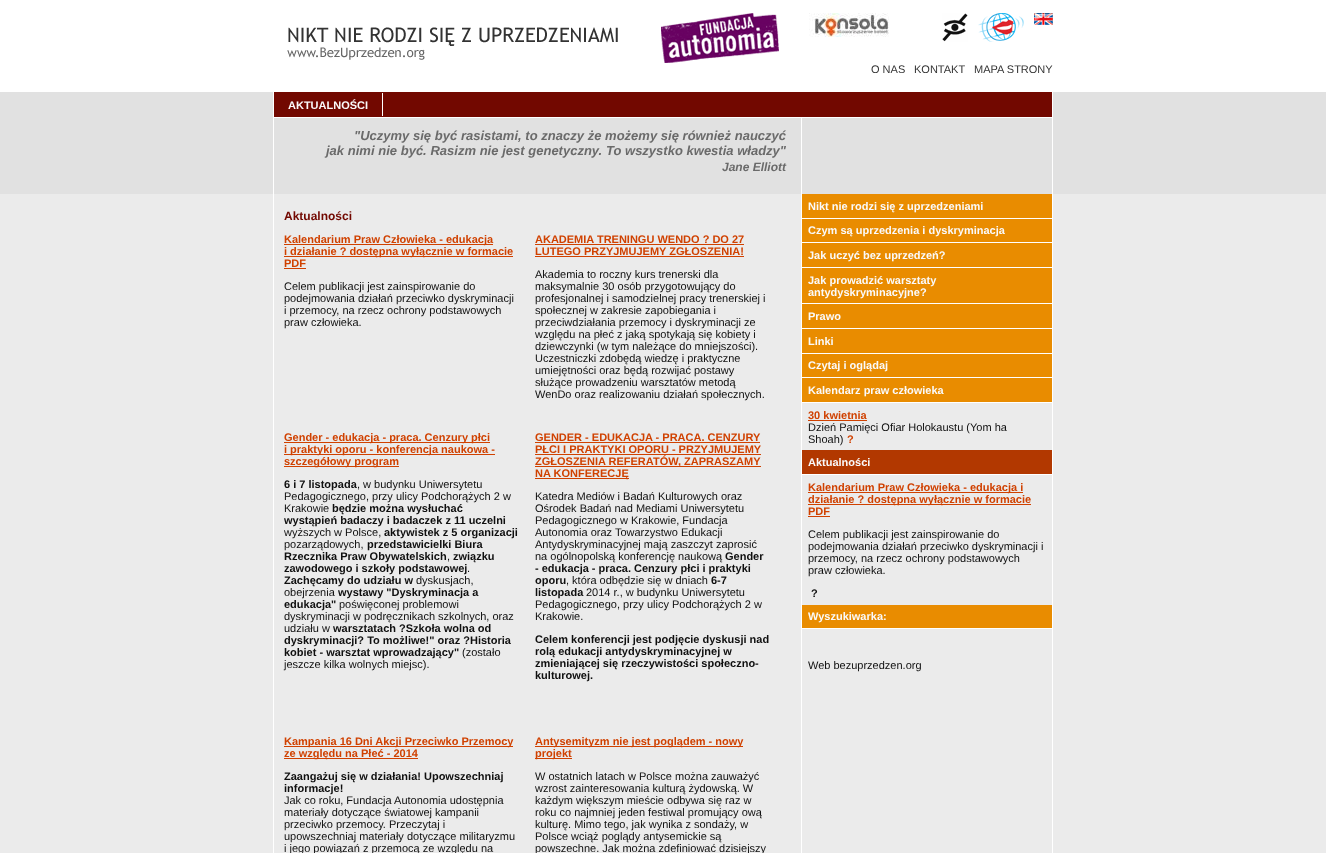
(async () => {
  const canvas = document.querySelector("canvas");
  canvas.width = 1326;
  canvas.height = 853;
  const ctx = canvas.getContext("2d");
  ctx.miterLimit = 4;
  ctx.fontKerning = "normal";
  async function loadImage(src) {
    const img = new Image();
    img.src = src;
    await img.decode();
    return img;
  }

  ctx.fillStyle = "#ffffff";
  ctx.fillRect(0, 0, 1326, 853);
  ctx.drawImage(await loadImage("img/1.png"), 661, 13, 118, 50);
  ctx.drawImage(await loadImage("img/2.png"), 809, 13, 80, 24);
  ctx.drawImage(await loadImage("img/3.png"), 942, 13, 26, 29);
  ctx.drawImage(await loadImage("img/4.png"), 978, 13, 46, 29);
  ctx.drawImage(await loadImage("img/5.png"), 1034, 13, 19, 12);
  ctx.drawImage(await loadImage("img/6.png"), 287, 27, 331, 33);
  for (const [x, y, w, h, color] of [
    [0, 92, 1326, 102, "#e1e1e1"],
    [273, 92, 1, 25, "#ffffff"],
    [274, 92, 778, 25, "#720800"],
    [382, 93, 1, 23, "#ffffff"],
    [1052, 92, 1, 25, "#ffffff"],
    [273, 117, 780, 1, "#ffffff"],
    [273, 118, 1, 76, "#ffffff"],
    [801, 118, 1, 76, "#ffffff"],
    [1052, 118, 1, 76, "#ffffff"],
    [0, 194, 1326, 659, "#ebebeb"],
    [273, 194, 1, 659, "#ffffff"],
    [284, 244, 209, 1, "#d04100"],
    [284, 256, 229, 1, "#d04100"],
    [284, 268, 22, 1, "#d04100"],
    [535, 244, 209, 1, "#d04100"],
    [535, 256, 209, 1, "#d04100"],
    [284, 442, 206, 1, "#d04100"],
    [284, 454, 211, 1, "#d04100"],
    [284, 466, 115, 1, "#d04100"],
    [535, 442, 225, 1, "#d04100"],
    [535, 454, 226, 1, "#d04100"],
    [535, 466, 226, 1, "#d04100"],
    [535, 478, 94, 1, "#d04100"],
    [284, 746, 229, 1, "#d04100"],
    [284, 758, 134, 1, "#d04100"],
    [535, 746, 208, 1, "#d04100"],
    [535, 758, 37, 1, "#d04100"],
    [801, 194, 1, 659, "#ffffff"],
    [802, 194, 250, 24, "#e98c00"],
    [802, 218, 250, 1, "#ffffff"],
    [802, 219, 250, 23, "#e98c00"],
    [802, 242, 250, 1, "#ffffff"],
    [802, 243, 250, 24, "#e98c00"],
    [802, 267, 250, 1, "#ffffff"],
    [802, 268, 250, 35, "#e98c00"],
    [802, 303, 250, 1, "#ffffff"],
    [802, 304, 250, 24, "#e98c00"],
    [802, 328, 250, 1, "#ffffff"],
    [802, 329, 250, 24, "#e98c00"],
    [802, 353, 250, 1, "#ffffff"],
    [802, 354, 250, 23, "#e98c00"],
    [802, 377, 250, 1, "#ffffff"],
    [802, 378, 250, 24, "#e98c00"],
    [802, 402, 250, 1, "#ffffff"],
    [808, 420, 59, 1, "#d04100"],
    [802, 450, 250, 24, "#b23800"],
    [802, 474, 250, 1, "#ffffff"],
    [808, 492, 215, 1, "#d04100"],
    [808, 504, 223, 1, "#d04100"],
    [808, 516, 22, 1, "#d04100"],
    [802, 605, 250, 23, "#e98c00"],
    [802, 628, 250, 1, "#ffffff"],
    [1052, 194, 1, 659, "#ffffff"],
  ]) {
    ctx.fillStyle = color;
    ctx.fillRect(x, y, w, h);
  }
  ctx.font = "11px Liberation Sans";
  ctx.fillStyle = "#333333";
  for (const [text, x, y] of [
    ["O NAS", 871, 73],
    ["KONTAKT", 914, 73],
    ["MAPA STRONY", 974, 73],
  ]) {
    ctx.fillText(text, x, y);
  }
  ctx.font = "bold 11px Liberation Sans";
  ctx.fillStyle = "#fafafa";
  ctx.fillText("AKTUALNOŚCI", 288, 109);
  ctx.wordSpacing = "0.1px";
  ctx.font = "italic bold 13px Liberation Sans";
  ctx.fillStyle = "#6a6a6a";
  ctx.fillText("\"Uczymy się być rasistami, to znaczy że możemy się również nauczyć", 354, 140);
  ctx.fillText("jak nimi nie być. Rasizm nie jest genetyczny. To wszystko kwestia władzy\"", 326, 155);
  ctx.wordSpacing = "0px";
  ctx.font = "italic bold 12px Liberation Sans";
  ctx.fillText("Jane Elliott", 722, 171);
  ctx.font = "bold 12px Liberation Sans";
  ctx.fillStyle = "#720800";
  ctx.fillText("Aktualności", 284, 220);
  ctx.font = "bold 11px Liberation Sans";
  ctx.fillStyle = "#d04100";
  for (const [text, x, y] of [
    ["Kalendarium Praw Człowieka - edukacja", 284, 243],
    ["i działanie ? dostępna wyłącznie w formacie", 284, 255],
    ["PDF", 284, 267],
  ]) {
    ctx.fillText(text, x, y);
  }
  ctx.font = "11px Liberation Sans";
  ctx.fillStyle = "#0f0f0f";
  for (const [text, x, y] of [
    ["Celem publikacji jest zainspirowanie do", 284, 290],
    ["podejmowania działań przeciwko dyskryminacji", 284, 302],
    ["i przemocy, na rzecz ochrony podstawowych", 284, 314],
    ["praw człowieka.", 284, 326],
  ]) {
    ctx.fillText(text, x, y);
  }
  ctx.font = "bold 11px Liberation Sans";
  ctx.fillStyle = "#d04100";
  ctx.fillText("AKADEMIA TRENINGU WENDO ? DO 27", 535, 243);
  ctx.fillText("LUTEGO PRZYJMUJEMY ZGŁOSZENIA!", 535, 255);
  ctx.font = "11px Liberation Sans";
  ctx.fillStyle = "#0f0f0f";
  for (const [text, x, y] of [
    ["Akademia to roczny kurs trenerski dla", 535, 278],
    ["maksymalnie 30 osób przygotowujący do", 535, 290],
    ["profesjonalnej i samodzielnej pracy trenerskiej i", 535, 302],
    ["społecznej w zakresie zapobiegania i", 535, 314],
    ["przeciwdziałania przemocy i dyskryminacji ze", 535, 326],
    ["względu na płeć z jaką spotykają się kobiety i", 535, 338],
    ["dziewczynki (w tym należące do mniejszości).", 535, 350],
    ["Uczestniczki zdobędą wiedzę i praktyczne", 535, 362],
    ["umiejętności oraz będą rozwijać postawy", 535, 374],
    ["służące prowadzeniu warsztatów metodą", 535, 386],
    ["WenDo oraz realizowaniu działań społecznych.", 535, 398],
  ]) {
    ctx.fillText(text, x, y);
  }
  ctx.font = "bold 11px Liberation Sans";
  ctx.fillStyle = "#d04100";
  for (const [text, x, y] of [
    ["Gender - edukacja - praca. Cenzury płci", 284, 441],
    ["i praktyki oporu - konferencja naukowa -", 284, 453],
    ["szczegółowy program", 284, 465],
  ]) {
    ctx.fillText(text, x, y);
  }
  ctx.fillStyle = "#0f0f0f";
  ctx.fillText("6 i 7 listopada", 284, 488);
  ctx.font = "11px Liberation Sans";
  for (const [text, x, y] of [
    [", w budynku Uniwersytetu", 357, 488],
    ["Pedagogicznego, przy ulicy Podchorążych 2 w", 284, 500],
    ["Krakowie", 284, 512],
  ]) {
    ctx.fillText(text, x, y);
  }
  ctx.font = "bold 11px Liberation Sans";
  ctx.fillText("będzie można wysłuchać", 332, 512);
  ctx.fillText("wystąpień badaczy i badaczek z 11 uczelni", 284, 524);
  ctx.font = "11px Liberation Sans";
  ctx.fillText("wyższych w Polsce,", 284, 536);
  ctx.font = "bold 11px Liberation Sans";
  ctx.fillText("aktywistek z 5 organizacji", 384, 536);
  ctx.font = "11px Liberation Sans";
  ctx.fillText("pozarządowych,", 284, 548);
  ctx.font = "bold 11px Liberation Sans";
  ctx.fillText("przedstawicielki Biura", 367, 548);
  ctx.fillText("Rzecznika Praw Obywatelskich", 284, 560);
  ctx.font = "11px Liberation Sans";
  ctx.fillText(",", 447, 560);
  ctx.font = "bold 11px Liberation Sans";
  ctx.fillText("związku", 453, 560);
  ctx.fillText("zawodowego i szkoły podstawowej", 284, 572);
  ctx.font = "11px Liberation Sans";
  ctx.fillText(".", 467, 572);
  ctx.font = "bold 11px Liberation Sans";
  ctx.fillText("Zachęcamy do udziału w", 284, 584);
  ctx.font = "11px Liberation Sans";
  ctx.fillText("dyskusjach,", 416, 584);
  ctx.fillText("obejrzenia", 284, 596);
  ctx.font = "bold 11px Liberation Sans";
  ctx.fillText("wystawy \"Dyskryminacja a", 338, 596);
  ctx.fillText("edukacja\"", 284, 608);
  ctx.font = "11px Liberation Sans";
  for (const [text, x, y] of [
    ["poświęconej problemowi", 339, 608],
    ["dyskryminacji w podręcznikach szkolnych, oraz", 284, 620],
    ["udziału w", 284, 632],
  ]) {
    ctx.fillText(text, x, y);
  }
  ctx.font = "bold 11px Liberation Sans";
  for (const [text, x, y] of [
    ["warsztatach ?Szkoła wolna od", 333, 632],
    ["dyskryminacji? To możliwe!\" oraz ?Historia", 284, 644],
    ["kobiet - warsztat wprowadzający\"", 284, 656],
  ]) {
    ctx.fillText(text, x, y);
  }
  ctx.font = "11px Liberation Sans";
  ctx.fillText("(zostało", 462, 656);
  ctx.fillText("jeszcze kilka wolnych miejsc).", 284, 668);
  ctx.font = "bold 11px Liberation Sans";
  ctx.fillStyle = "#d04100";
  for (const [text, x, y] of [
    ["GENDER - EDUKACJA - PRACA. CENZURY", 535, 441],
    ["PŁCI I PRAKTYKI OPORU - PRZYJMUJEMY", 535, 453],
    ["ZGŁOSZENIA REFERATÓW, ZAPRASZAMY", 535, 465],
    ["NA KONFERECJĘ", 535, 477],
  ]) {
    ctx.fillText(text, x, y);
  }
  ctx.font = "11px Liberation Sans";
  ctx.fillStyle = "#0f0f0f";
  for (const [text, x, y] of [
    ["Katedra Mediów i Badań Kulturowych oraz", 535, 500],
    ["Ośrodek Badań nad Mediami Uniwersytetu", 535, 512],
    ["Pedagogicznego w Krakowie, Fundacja", 535, 524],
    ["Autonomia oraz Towarzystwo Edukacji", 535, 536],
    ["Antydyskryminacyjnej mają zaszczyt zaprosić", 535, 548],
    ["na ogólnopolską konferencję naukową", 535, 560],
  ]) {
    ctx.fillText(text, x, y);
  }
  ctx.font = "bold 11px Liberation Sans";
  for (const [text, x, y] of [
    ["Gender", 725, 560],
    ["- edukacja - praca. Cenzury płci i praktyki", 535, 572],
    ["oporu", 535, 584],
  ]) {
    ctx.fillText(text, x, y);
  }
  ctx.font = "11px Liberation Sans";
  ctx.fillText(", która odbędzie się w dniach", 566, 584);
  ctx.font = "bold 11px Liberation Sans";
  ctx.fillText("6-7", 711, 584);
  ctx.fillText("listopada", 535, 596);
  ctx.font = "11px Liberation Sans";
  for (const [text, x, y] of [
    ["2014 r., w budynku Uniwersytetu", 586, 596],
    ["Pedagogicznego, przy ulicy Podchorążych 2 w", 535, 608],
    ["Krakowie.", 535, 620],
  ]) {
    ctx.fillText(text, x, y);
  }
  ctx.font = "bold 11px Liberation Sans";
  for (const [text, x, y] of [
    ["Celem konferencji jest podjęcie dyskusji nad", 535, 643],
    ["rolą edukacji antydyskryminacyjnej w", 535, 655],
    ["zmieniającej się rzeczywistości społeczno-", 535, 667],
    ["kulturowej.", 535, 679],
  ]) {
    ctx.fillText(text, x, y);
  }
  ctx.fillStyle = "#d04100";
  ctx.fillText("Kampania 16 Dni Akcji Przeciwko Przemocy", 284, 745);
  ctx.fillText("ze względu na Płeć - 2014", 284, 757);
  ctx.fillStyle = "#0f0f0f";
  ctx.fillText("Zaangażuj się w działania! Upowszechniaj", 284, 780);
  ctx.fillText("informacje!", 284, 792);
  ctx.font = "11px Liberation Sans";
  for (const [text, x, y] of [
    ["Jak co roku, Fundacja Autonomia udostępnia", 284, 804],
    ["materiały dotyczące światowej kampanii", 284, 816],
    ["przeciwko przemocy. Przeczytaj i", 284, 828],
    ["upowszechniaj materiały dotyczące militaryzmu", 284, 840],
    ["i jego powiązań z przemocą ze względu na", 284, 852],
  ]) {
    ctx.fillText(text, x, y);
  }
  ctx.font = "bold 11px Liberation Sans";
  ctx.fillStyle = "#d04100";
  ctx.fillText("Antysemityzm nie jest poglądem - nowy", 535, 745);
  ctx.fillText("projekt", 535, 757);
  ctx.font = "11px Liberation Sans";
  ctx.fillStyle = "#0f0f0f";
  for (const [text, x, y] of [
    ["W ostatnich latach w Polsce można zauważyć", 535, 780],
    ["wzrost zainteresowania kulturą żydowską. W", 535, 792],
    ["każdym większym mieście odbywa się raz w", 535, 804],
    ["roku co najmniej jeden festiwal promujący ową", 535, 816],
    ["kulturę. Mimo tego, jak wynika z sondaży, w", 535, 828],
    ["Polsce wciąż poglądy antysemickie są", 535, 840],
    ["powszechne. Jak można zdefiniować dzisiejszy", 535, 852],
  ]) {
    ctx.fillText(text, x, y);
  }
  ctx.font = "bold 11px Liberation Sans";
  ctx.fillStyle = "#fafafa";
  for (const [text, x, y] of [
    ["Nikt nie rodzi się z uprzedzeniami", 808, 210],
    ["Czym są uprzedzenia i dyskryminacja", 808, 234],
    ["Jak uczyć bez uprzedzeń?", 808, 259],
    ["Jak prowadzić warsztaty", 808, 284],
    ["antydyskryminacyjne?", 808, 296],
    ["Prawo", 808, 320],
    ["Linki", 808, 345],
    ["Czytaj i oglądaj", 808, 369],
    ["Kalendarz praw człowieka", 808, 394],
  ]) {
    ctx.fillText(text, x, y);
  }
  ctx.fillStyle = "#d04100";
  ctx.fillText("30 kwietnia", 808, 419);
  ctx.font = "11px Liberation Sans";
  ctx.fillStyle = "#0f0f0f";
  ctx.fillText("Dzień Pamięci Ofiar Holokaustu (Yom ha", 808, 431);
  ctx.fillText("Shoah)", 808, 443);
  ctx.font = "bold 11px Liberation Sans";
  ctx.fillStyle = "#d04100";
  ctx.fillText("?", 847, 443);
  ctx.fillStyle = "#fafafa";
  ctx.fillText("Aktualności", 808, 466);
  ctx.fillStyle = "#d04100";
  for (const [text, x, y] of [
    ["Kalendarium Praw Człowieka - edukacja i", 808, 491],
    ["działanie ? dostępna wyłącznie w formacie", 808, 503],
    ["PDF", 808, 515],
  ]) {
    ctx.fillText(text, x, y);
  }
  ctx.font = "11px Liberation Sans";
  ctx.fillStyle = "#0f0f0f";
  for (const [text, x, y] of [
    ["Celem publikacji jest zainspirowanie do", 808, 538],
    ["podejmowania działań przeciwko dyskryminacji i", 808, 550],
    ["przemocy, na rzecz ochrony podstawowych", 808, 562],
    ["praw człowieka.", 808, 574],
  ]) {
    ctx.fillText(text, x, y);
  }
  ctx.font = "bold 11px Liberation Sans";
  ctx.fillText("?", 811, 597);
  ctx.fillStyle = "#fafafa";
  ctx.fillText("Wyszukiwarka:", 808, 620);
  ctx.font = "11px Liberation Sans";
  ctx.fillStyle = "#0f0f0f";
  ctx.fillText("Web bezuprzedzen.org", 808, 669);
})();
